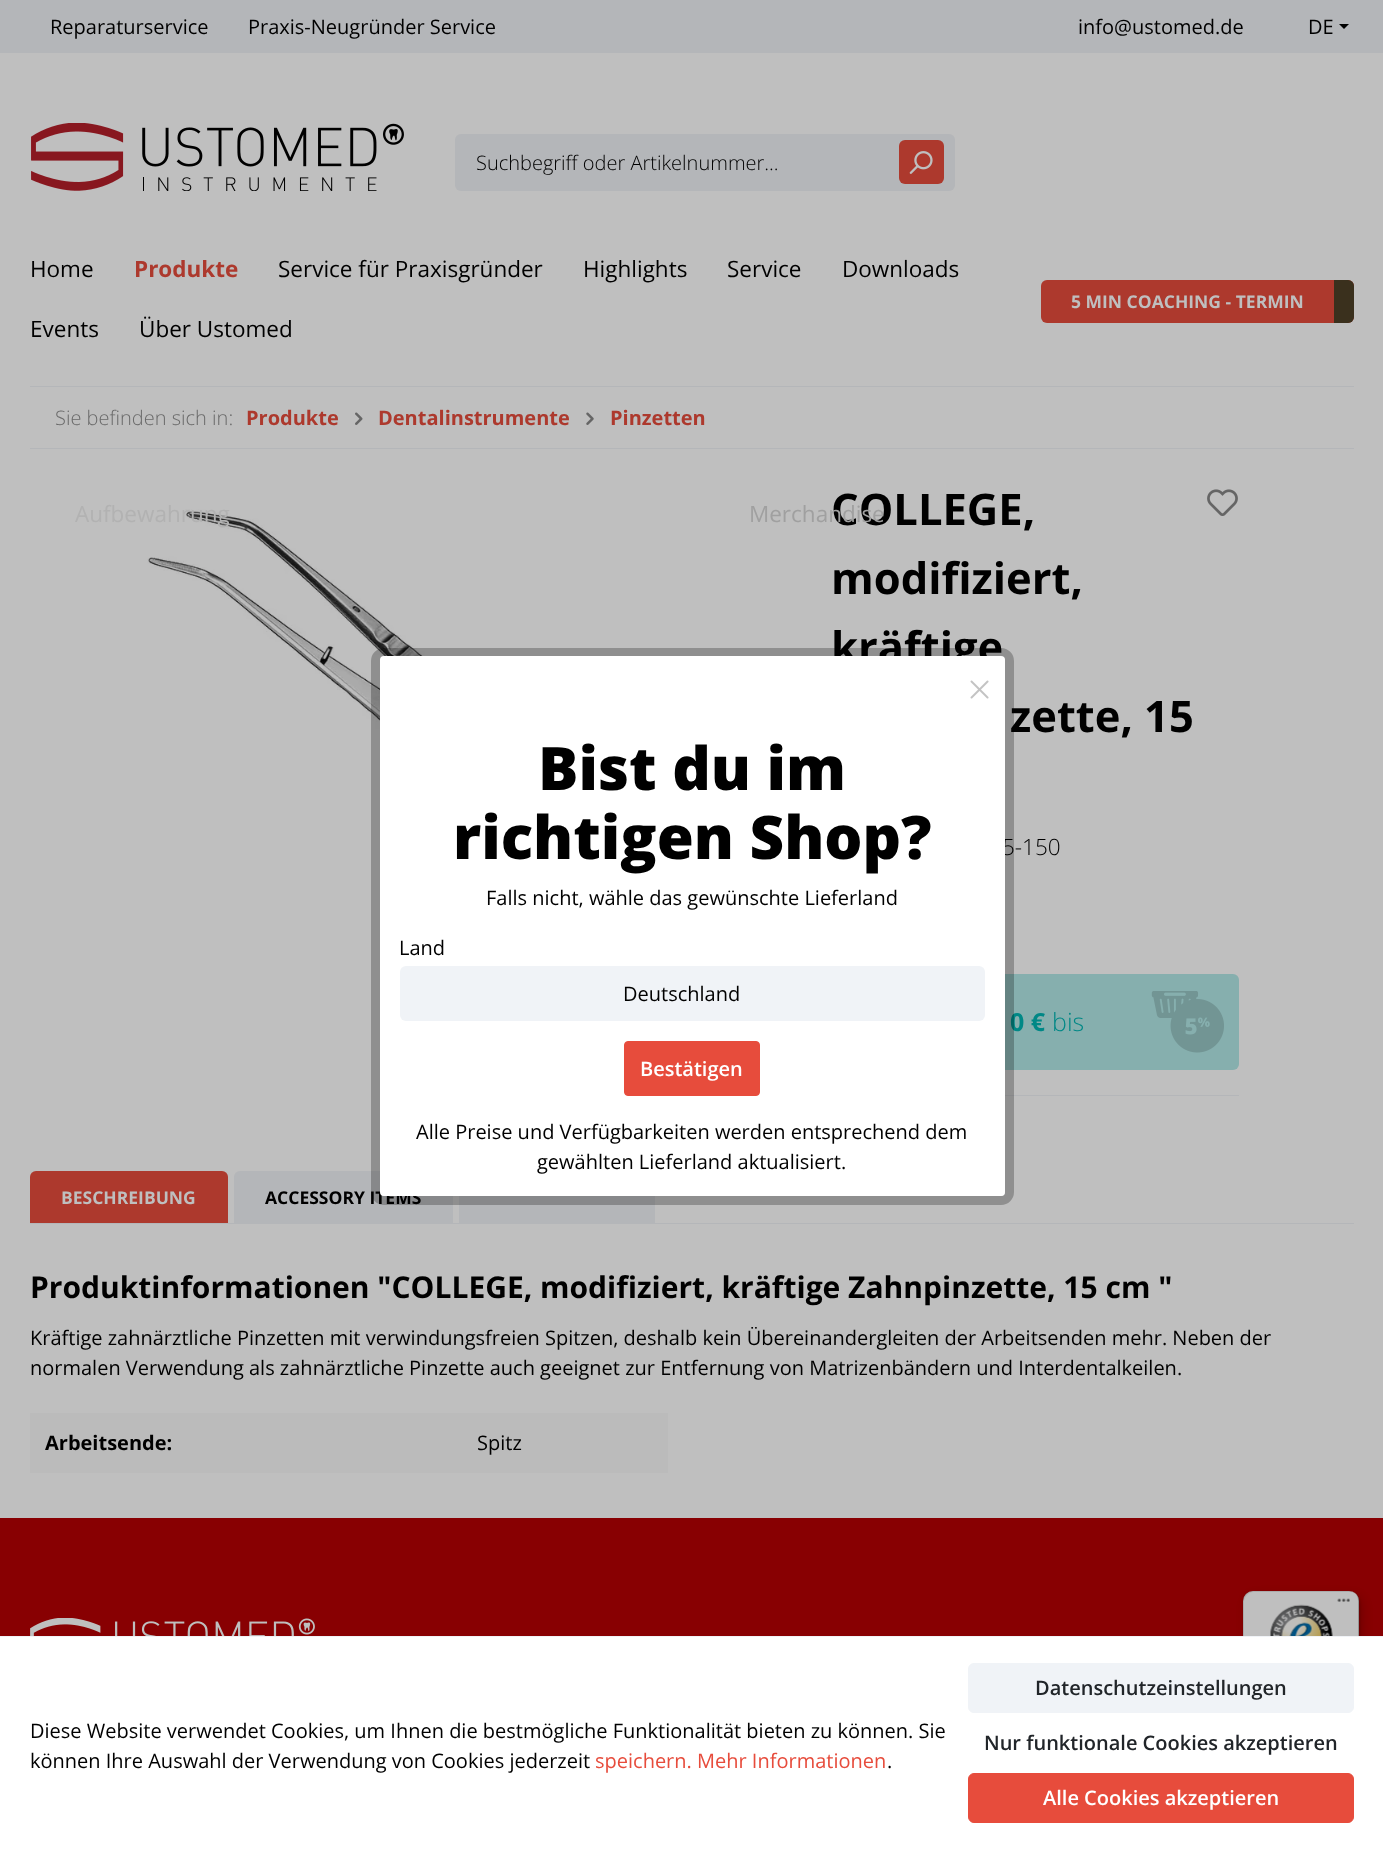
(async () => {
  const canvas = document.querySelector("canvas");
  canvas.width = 1383;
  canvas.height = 1852;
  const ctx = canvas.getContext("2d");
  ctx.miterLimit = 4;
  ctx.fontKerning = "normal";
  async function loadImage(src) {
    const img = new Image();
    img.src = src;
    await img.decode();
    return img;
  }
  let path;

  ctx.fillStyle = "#bfbfbf";
  ctx.fillRect(0, 0, 1383, 1852);
  ctx.fillStyle = "#b4b6b9";
  ctx.fillRect(0, 0, 1383, 53);
  ctx.fillStyle = "#000000";
  path = new Path2D("M1339 24H1349L1344 29Z");
  ctx.fill(path);
  ctx.drawImage(await loadImage("img/1.png"), 31, 123, 373, 68);
  ctx.fillStyle = "#b4b6b9";
  ctx.beginPath();
  ctx.roundRect(455, 134, 500, 57, 6);
  ctx.fill();
  ctx.fillStyle = "#ad392d";
  ctx.beginPath();
  ctx.roundRect(899, 140, 45, 44, 6);
  ctx.fill();
  ctx.drawImage(await loadImage("img/2.png"), 909, 151, 24, 23);
  ctx.beginPath();
  ctx.roundRect(1041, 280, 313, 43, 6);
  ctx.fill();
  ctx.fillStyle = "#3a301d";
  ctx.beginPath();
  ctx.roundRect(1334, 280, 20, 43, [0, 6, 6, 0]);
  ctx.fill();
  ctx.fillStyle = "#b4b6b9";
  ctx.fillRect(30, 386, 1324, 1);
  ctx.fillRect(30, 448, 1324, 1);
  ctx.drawImage(await loadImage("img/3.png"), 355, 412, 8, 13);
  ctx.drawImage(await loadImage("img/4.png"), 586, 412, 8, 13);
  ctx.drawImage(await loadImage("img/5.png"), 147, 509, 606, 464);
  ctx.drawImage(await loadImage("img/6.png"), 1207, 489, 31, 27);
  ctx.fillStyle = "#86afae";
  ctx.beginPath();
  ctx.roundRect(831, 974, 408, 96, 6);
  ctx.fill();
  ctx.drawImage(await loadImage("img/7.png"), 1151, 991, 73, 62);
  ctx.fillStyle = "#b4b6b9";
  ctx.fillRect(1005, 1095, 234, 1);
  ctx.fillRect(30, 1223, 1324, 1);
  ctx.fillStyle = "#ad392d";
  ctx.beginPath();
  ctx.roundRect(30, 1171, 198, 52, [6, 6, 0, 0]);
  ctx.fill();
  ctx.fillStyle = "#b4b6b9";
  ctx.beginPath();
  ctx.roundRect(234, 1171, 219, 52, [6, 6, 0, 0]);
  ctx.fill();
  for (const [x, y, w, h, color] of [
    [459, 1196, 196, 27, "#b4b6b9"],
    [30, 1413, 638, 60, "#bbbbbb"],
    [0, 1518, 1383, 118, "#880002"],
  ]) {
    ctx.fillStyle = color;
    ctx.fillRect(x, y, w, h);
  }
  ctx.drawImage(await loadImage("img/9.png"), 30, 1618, 285, 18);
  ctx.fillStyle = "rgba(0, 0, 0, 0.15)";
  ctx.filter = "blur(5px)";
  ctx.beginPath();
  ctx.roundRect(1246, 1595, 117, 194, 10);
  ctx.fill();
  ctx.filter = "none";
  ctx.filter = "blur(1px)";
  ctx.beginPath();
  ctx.roundRect(1244, 1593, 116, 193, 10);
  ctx.fill();
  ctx.filter = "none";
  ctx.fillStyle = "#bfbfbf";
  ctx.beginPath();
  ctx.roundRect(1243, 1591, 116, 194, 10);
  ctx.fill();
  ctx.fillStyle = "rgba(0, 0, 0, 0.1)";
  path = new Path2D("M1254 1592H1350C1353 1592 1355 1593 1357 1594C1355 1592 1352 1591 1349 1591H1253C1247 1591 1243 1595 1243 1601V1775C1243 1777 1244 1780 1245 1781C1244 1780 1244 1778 1244 1776V1602C1244 1597 1248 1592 1254 1592Z");
  ctx.fill(path);
  ctx.fillStyle = "rgba(0, 0, 0, 0.2)";
  path = new Path2D("M1247 1783C1249 1784 1251 1785 1253 1785H1349C1355 1785 1359 1781 1359 1775V1601C1359 1598 1358 1595 1356 1593C1357 1595 1358 1597 1358 1600V1774C1358 1779 1353 1784 1348 1784H1251C1250 1784 1248 1784 1247 1783Z");
  ctx.fill(path);
  ctx.fillStyle = "rgba(38, 38, 38, 0.2)";
  path = new Path2D("M1247 1783C1248 1784 1251 1785 1253 1785H1349C1355 1785 1359 1781 1359 1775V1601C1359 1598 1358 1595 1355 1593C1357 1595 1358 1598 1358 1600V1774C1358 1780 1354 1784 1348 1784H1252C1250 1784 1248 1784 1247 1783Z");
  ctx.fill(path);
  ctx.fillStyle = "rgba(191, 191, 191, 0.3)";
  path = new Path2D("M1247 1783C1248 1784 1251 1785 1253 1785H1349C1355 1785 1359 1781 1359 1775V1601C1359 1595 1355 1591 1349 1591H1348C1354 1591 1358 1595 1358 1601V1774C1358 1780 1354 1784 1348 1784H1252C1250 1784 1248 1784 1247 1783Z");
  ctx.fill(path);
  ctx.drawImage(await loadImage("img/10.png"), 1270, 1604, 63, 32);
  ctx.drawImage(await loadImage("img/11.png"), 1337, 1598, 13, 4);
  ctx.fillStyle = "#ffffff";
  ctx.fillRect(0, 1637, 1383, 215);
  ctx.fillStyle = "#f0f3f7";
  ctx.fillRect(0, 1636, 1383, 1);
  ctx.beginPath();
  ctx.roundRect(968.5, 1663.5, 385, 49, 5.5);
  ctx.fill();
  ctx.strokeStyle = "#f0f3f7";
  ctx.stroke();
  ctx.fillStyle = "#e74c3c";
  ctx.beginPath();
  ctx.roundRect(968.5, 1773.5, 385, 49, 5.5);
  ctx.fill();
  ctx.strokeStyle = "#e74c3c";
  ctx.stroke();
  ctx.font = "20px Open Sans";
  ctx.fillStyle = "#000000";
  for (const [text, x, y] of [
    ["Reparaturservice", 50, 34],
    ["Praxis-Neugründer Service", 248, 34],
    ["info@ustomed.de", 1078, 34],
    ["DE", 1308, 34],
  ]) {
    ctx.fillText(text, x, y);
  }
  ctx.font = "300 20px Open Sans";
  ctx.fillText("Suchbegriff oder Artikelnummer...", 476, 170);
  ctx.font = "22.5px Open Sans";
  ctx.fillText("Home", 30, 277);
  ctx.font = "bold 22.5px Open Sans";
  ctx.fillStyle = "#ad392d";
  ctx.fillText("Produkte", 134, 277);
  ctx.font = "22.5px Open Sans";
  ctx.fillStyle = "#000000";
  for (const [text, x, y] of [
    ["Service für Praxisgründer", 278, 277],
    ["Highlights", 583, 277],
    ["Service", 727, 277],
    ["Downloads", 842, 277],
    ["Events", 30, 337],
    ["Über Ustomed", 139, 337],
  ]) {
    ctx.fillText(text, x, y);
  }
  ctx.fillStyle = "#b2b2b2";
  ctx.fillText("Aufbewahrung", 75, 522);
  ctx.font = "bold 17.5px Open Sans";
  ctx.fillStyle = "#bfbfbf";
  ctx.fillText("5 MIN COACHING - TERMIN", 1071, 308);
  ctx.font = "300 20px Open Sans";
  ctx.fillStyle = "#6a6a6a";
  ctx.fillText("Sie befinden sich in:", 55, 425);
  ctx.font = "bold 20px Open Sans";
  ctx.fillStyle = "#ad392d";
  for (const [text, x, y] of [
    ["Produkte", 246, 425],
    ["Dentalinstrumente", 378, 425],
    ["Pinzetten", 610, 425],
  ]) {
    ctx.fillText(text, x, y);
  }
  ctx.font = "bold 43.5px Open Sans";
  ctx.fillStyle = "#000000";
  ctx.fillText("COLLEGE,", 831, 525);
  ctx.font = "22.5px Open Sans";
  ctx.fillStyle = "#a0a0a0";
  ctx.fillText("Merchandise", 749, 522);
  ctx.font = "bold 43.5px Open Sans";
  ctx.fillStyle = "#000000";
  for (const [text, x, y] of [
    ["modifiziert,", 831, 594],
    ["kräftige", 831, 663],
    ["zette, 15", 1010, 732],
  ]) {
    ctx.fillText(text, x, y);
  }
  ctx.font = "300 22.5px Open Sans";
  ctx.fillText("5-150", 1002, 855);
  ctx.font = "bold 25px Open Sans";
  ctx.fillStyle = "#008886";
  ctx.fillText("0 €", 1010, 1031);
  ctx.font = "300 25px Open Sans";
  ctx.fillText("bis", 1052, 1031);
  ctx.font = "bold 17.5px Open Sans";
  ctx.fillStyle = "#bfbfbf";
  ctx.fillText("BESCHREIBUNG", 61, 1204);
  ctx.fillStyle = "#000000";
  ctx.fillText("ACCESSORY ITEMS", 265, 1204);
  ctx.font = "bold 30px Open Sans";
  ctx.fillText("Produktinformationen \"COLLEGE, modifiziert, kräftige Zahnpinzette, 15 cm \"", 30, 1298);
  ctx.font = "20px Open Sans";
  ctx.fillText("Kräftige zahnärztliche Pinzetten mit verwindungsfreien Spitzen, deshalb kein Übereinandergleiten der Arbeitsenden mehr. Neben der", 30, 1345);
  ctx.fillText("normalen Verwendung als zahnärztliche Pinzette auch geeignet zur Entfernung von Matrizenbändern und Interdentalkeilen.", 30, 1375);
  ctx.font = "bold 20px Open Sans";
  ctx.fillText("Arbeitsende:", 45, 1450);
  ctx.font = "20px Open Sans";
  ctx.fillText("Spitz", 477, 1450);
  ctx.beginPath();
  ctx.roundRect(375.5, 652.5, 634, 548, 8.5);
  ctx.strokeStyle = "rgba(0, 0, 0, 0.25)";
  ctx.lineWidth = 9;
  ctx.stroke();
  ctx.fillStyle = "#ffffff";
  ctx.beginPath();
  ctx.roundRect(380, 656, 625, 540, 4);
  ctx.fill();
  ctx.drawImage(await loadImage("img/8.png"), 970, 680, 19, 19);
  ctx.font = "800 60px Open Sans";
  ctx.fillStyle = "#000000";
  ctx.fillText("Bist du im", 538, 790);
  ctx.fillText("richtigen Shop?", 453, 859);
  ctx.font = "20px Open Sans";
  ctx.fillText("Falls nicht, wähle das gewünschte Lieferland", 486, 905);
  ctx.fillText("Land", 399, 955);
  ctx.fillStyle = "#f0f3f7";
  ctx.beginPath();
  ctx.roundRect(400, 966, 585, 55, 6);
  ctx.fill();
  ctx.fillStyle = "#000000";
  ctx.fillText("Deutschland", 623, 1001);
  ctx.fillStyle = "#e74c3c";
  ctx.beginPath();
  ctx.roundRect(624.5, 1041.5, 135, 54, 3.5);
  ctx.fill();
  ctx.strokeStyle = "#e74c3c";
  ctx.lineWidth = 1;
  ctx.stroke();
  ctx.font = "600 20px Open Sans";
  ctx.fillStyle = "#ffffff";
  ctx.fillText("Bestätigen", 640, 1076);
  ctx.font = "20px Open Sans";
  ctx.fillStyle = "#000000";
  for (const [text, x, y] of [
    ["Alle Preise und Verfügbarkeiten werden entsprechend dem", 416, 1139],
    ["gewählten Lieferland aktualisiert.", 537, 1169],
    ["Diese Website verwendet Cookies, um Ihnen die bestmögliche Funktionalität bieten zu können. Sie", 30, 1738],
    ["können Ihre Auswahl der Verwendung von Cookies jederzeit", 30, 1768],
  ]) {
    ctx.fillText(text, x, y);
  }
  ctx.fillStyle = "#e74c3c";
  ctx.fillText("speichern. Mehr Informationen", 595, 1768);
  ctx.fillStyle = "#000000";
  ctx.fillText(".", 887, 1768);
  ctx.font = "600 20px Open Sans";
  ctx.fillStyle = "#212529";
  ctx.fillText("Datenschutzeinstellungen", 1035, 1695);
  ctx.fillText("Nur funktionale Cookies akzeptieren", 984, 1750);
  ctx.fillStyle = "#ffffff";
  ctx.fillText("Alle Cookies akzeptieren", 1043, 1805);
})();
